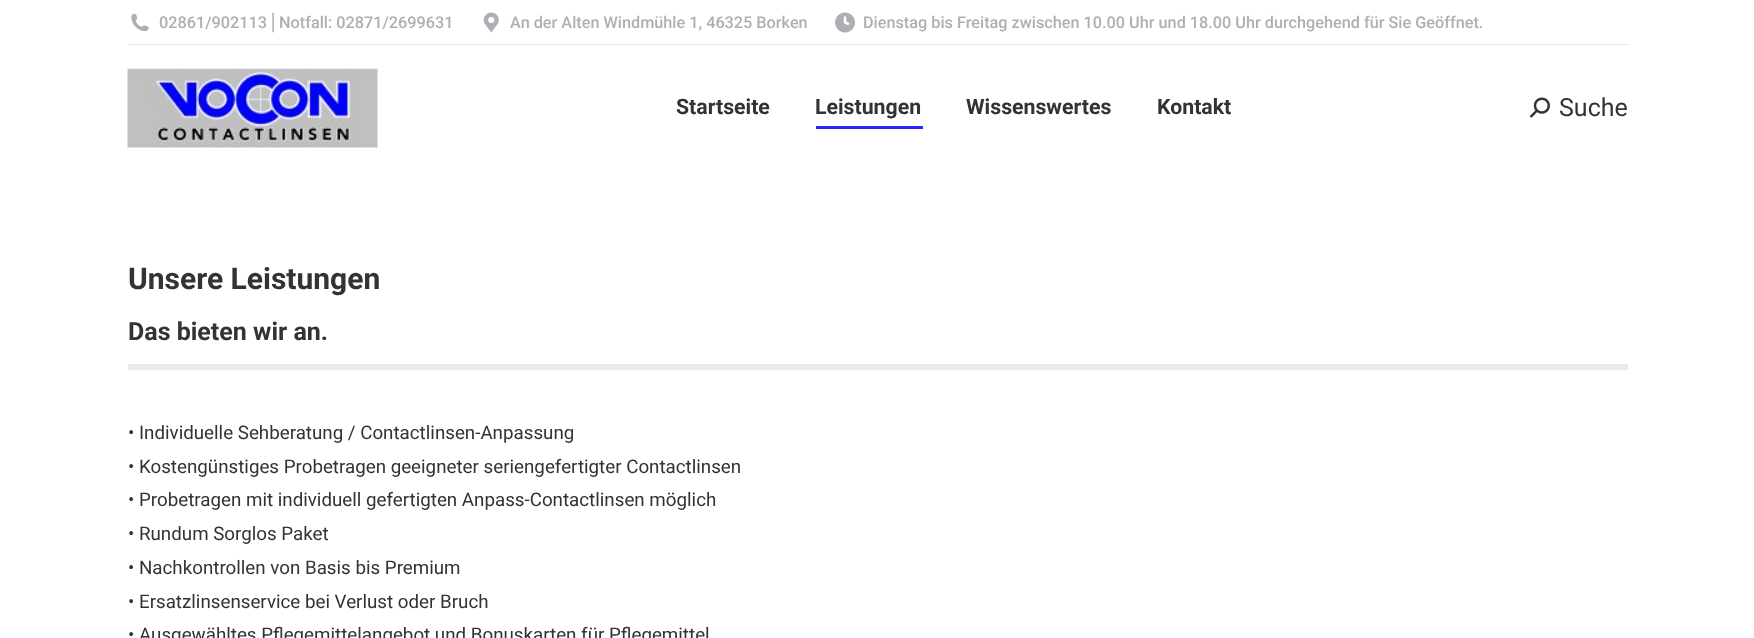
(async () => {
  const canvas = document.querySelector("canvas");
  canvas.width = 1754;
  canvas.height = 638;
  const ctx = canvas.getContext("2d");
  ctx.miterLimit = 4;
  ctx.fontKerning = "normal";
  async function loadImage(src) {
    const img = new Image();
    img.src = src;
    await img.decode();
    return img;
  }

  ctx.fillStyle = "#ffffff";
  ctx.fillRect(0, 0, 1754, 638);
  ctx.drawImage(await loadImage("img/1.png"), 131, 13, 18, 19);
  ctx.drawImage(await loadImage("img/2.png"), 483, 12, 16, 21);
  ctx.drawImage(await loadImage("img/3.png"), 835, 12, 20, 21);
  ctx.fillStyle = "#e7e7e7";
  ctx.fillRect(128, 44, 1500, 1);
  ctx.drawImage(await loadImage("img/4.png"), 127, 68, 251, 80);
  ctx.fillStyle = "#2626ff";
  ctx.fillRect(816, 126, 107, 3);
  ctx.drawImage(await loadImage("img/5.png"), 1530, 97, 20, 21);
  ctx.fillStyle = "#ebebeb";
  ctx.fillRect(128, 364, 1500, 6);
  ctx.font = "500 16.25px Roboto";
  ctx.fillStyle = "#aeafb5";
  ctx.fillText("02861/902113", 159, 28);
  ctx.font = "16.25px DejaVu Sans";
  ctx.fillText("⎪", 267, 28);
  ctx.font = "500 16.25px Roboto";
  for (const [text, x, y] of [
    ["Notfall: 02871/2699631", 279, 28],
    ["An der Alten Windmühle 1, 46325 Borken", 510, 28],
    ["Dienstag bis Freitag zwischen 10.00 Uhr und 18.00 Uhr durchgehend für Sie Geöffnet.", 863, 28],
  ]) {
    ctx.fillText(text, x, y);
  }
  ctx.font = "bold 21.25px Roboto";
  ctx.fillStyle = "#333333";
  for (const [text, x, y] of [
    ["Startseite", 676, 114],
    ["Leistungen", 815, 114],
    ["Wissenswertes", 966, 114],
    ["Kontakt", 1157, 114],
  ]) {
    ctx.fillText(text, x, y);
  }
  ctx.font = "25px Roboto";
  ctx.fillText("Suche", 1559, 116);
  ctx.font = "bold 30px Roboto";
  ctx.fillText("Unsere Leistungen", 128, 289);
  ctx.font = "bold 25px Roboto";
  ctx.fillText("Das bieten wir an.", 128, 340);
  ctx.font = "18.75px Roboto";
  for (const [text, x, y] of [
    ["• Individuelle Sehberatung / Contactlinsen-Anpassung", 128, 439],
    ["• Kostengünstiges Probetragen geeigneter seriengefertigter Contactlinsen", 128, 473],
    ["• Probetragen mit individuell gefertigten Anpass-Contactlinsen möglich", 128, 506],
    ["• Rundum Sorglos Paket", 128, 540],
    ["• Nachkontrollen von Basis bis Premium", 128, 574],
    ["• Ersatzlinsenservice bei Verlust oder Bruch", 128, 608],
    ["• Ausgewähltes Pflegemittelangebot und Bonuskarten für Pflegemittel", 128, 641],
  ]) {
    ctx.fillText(text, x, y);
  }
})();
